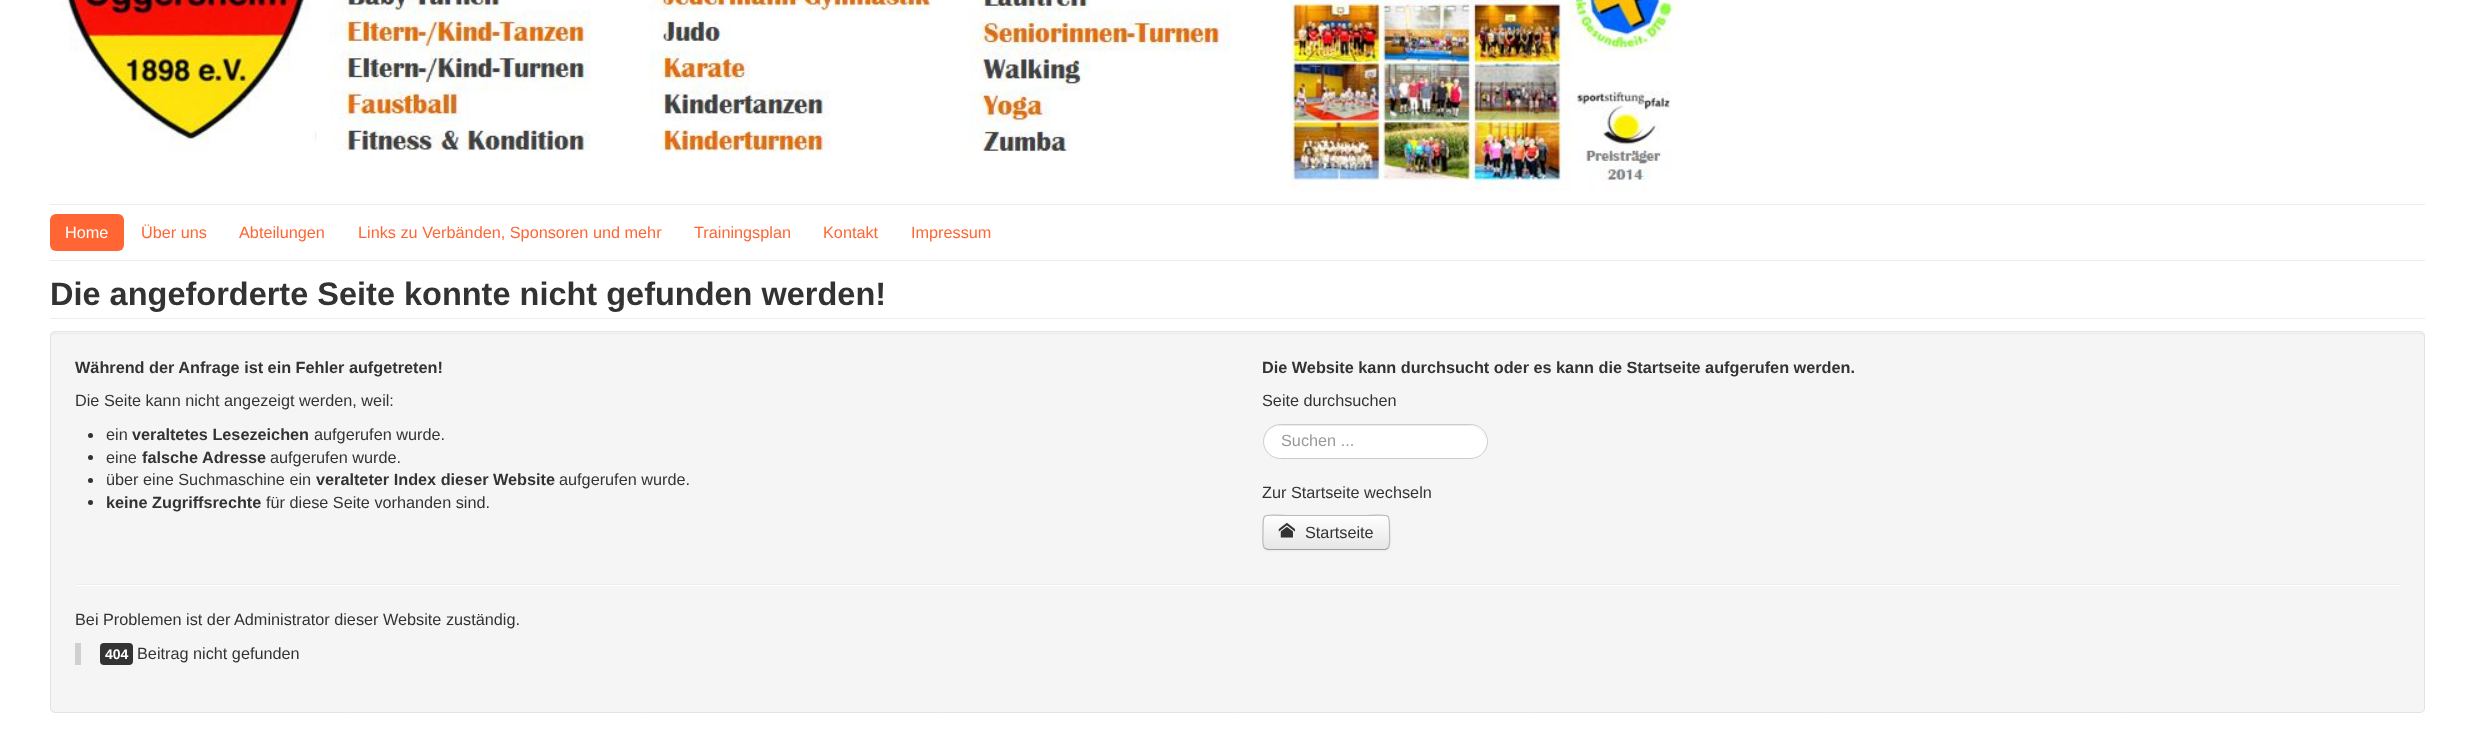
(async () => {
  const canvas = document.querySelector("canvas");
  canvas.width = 2475;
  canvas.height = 732;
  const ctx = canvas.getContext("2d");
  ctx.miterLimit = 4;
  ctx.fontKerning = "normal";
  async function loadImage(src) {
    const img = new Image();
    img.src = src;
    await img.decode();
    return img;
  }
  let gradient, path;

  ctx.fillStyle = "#ffffff";
  ctx.fillRect(0, 0, 2475, 732);
  ctx.drawImage(await loadImage("img/1.png"), 60, 0, 1619, 191);
  ctx.fillStyle = "#ececec";
  ctx.fillRect(50, 204, 2375, 1);
  ctx.fillRect(50, 260, 2375, 1);
  ctx.fillStyle = "#ff6633";
  ctx.beginPath();
  ctx.roundRect(50, 214, 74, 37, 6);
  ctx.fill();
  ctx.fillStyle = "#eeeeee";
  ctx.fillRect(50, 318, 2375, 1);
  ctx.fillStyle = "#f5f5f5";
  ctx.beginPath();
  ctx.roundRect(50, 331, 2375, 382, 5);
  ctx.fill();
  ctx.fillStyle = "#e9e9e9";
  path = new Path2D("M55 334H2420C2422 334 2424 335 2424 338C2424 335 2423 333 2420 333H55C52 333 51 335 51 338C51 335 53 334 55 334Z");
  ctx.fill(path);
  ctx.beginPath();
  ctx.roundRect(50.5, 331.5, 2374, 381, 4.5);
  ctx.strokeStyle = "#e3e3e3";
  ctx.stroke();
  ctx.fillStyle = "#333333";
  ctx.beginPath();
  ctx.arc(90.5, 435.5, 2.5, 0, Math.PI * 2);
  ctx.fill();
  ctx.beginPath();
  ctx.arc(90.5, 457.5, 2.5, 0, Math.PI * 2);
  ctx.fill();
  ctx.beginPath();
  ctx.arc(90.5, 480.5, 2.5, 0, Math.PI * 2);
  ctx.fill();
  ctx.beginPath();
  ctx.arc(90.5, 502.5, 2.5, 0, Math.PI * 2);
  ctx.fill();
  ctx.fillStyle = "#ffffff";
  ctx.beginPath();
  ctx.roundRect(1263, 424, 225, 35, 17.5);
  ctx.fill();
  ctx.fillStyle = "#ececec";
  path = new Path2D("M1280 426H1470C1479 426 1486 434 1486 442C1486 418 1450 425 1438 425H1312C1300 425 1264 418 1264 442C1264 434 1271 426 1280 426Z");
  ctx.fill(path);
  ctx.beginPath();
  ctx.roundRect(1263.5, 424.5, 224, 34, 17);
  ctx.strokeStyle = "#cccccc";
  ctx.stroke();
  ctx.fillStyle = "rgba(0, 0, 0, 0.05)";
  ctx.filter = "blur(1px)";
  ctx.beginPath();
  ctx.roundRect(1263, 516, 127, 35, 5);
  ctx.fill();
  ctx.filter = "none";
  ctx.fillStyle = "#f5f5f5";
  ctx.beginPath();
  ctx.roundRect(1263, 515, 127, 35, 5);
  ctx.fill();
  ctx.save();
  ctx.beginPath();
  ctx.roundRect(1263, 515, 127, 35, 5);
  ctx.clip();
  gradient = ctx.createLinearGradient(1326, 516, 1326, 549);
  gradient.addColorStop(0, "#ffffff");
  gradient.addColorStop(1, "#e6e6e6");
  ctx.fillStyle = gradient;
  ctx.fillRect(1263, 516, 127, 33);
  ctx.restore();
  path = new Path2D("M1388 548L1385.5 549.5H1287H1267.5L1264.5 548");
  ctx.strokeStyle = "#a2a2a2";
  ctx.lineWidth = 1.2;
  ctx.stroke(path);
  path = new Path2D("M1264.5 548C1262 545.5 1263 535.5 1263 532.5C1263 510.5 1261.5 515.5 1287 515.5H1365.5C1391 515.5 1389.5 510.5 1389.5 532.5C1389.5 535.5 1390.5 545.5 1388 548");
  ctx.strokeStyle = "#bbbbbb";
  ctx.stroke(path);
  ctx.drawImage(await loadImage("img/2.png"), 1278, 522, 17, 16);
  for (const [x, y, w, h, color] of [
    [75, 584, 2325, 1, "#eeeeee"],
    [75, 585, 2325, 1, "#ffffff"],
    [75, 643, 6, 22, "#d0d0d0"],
  ]) {
    ctx.fillStyle = color;
    ctx.fillRect(x, y, w, h);
  }
  ctx.fillStyle = "#333333";
  ctx.beginPath();
  ctx.roundRect(100, 643, 33, 22, 4);
  ctx.fill();
  ctx.font = "16.25px Liberation Sans";
  ctx.fillStyle = "#ffffff";
  ctx.fillText("Home", 65, 238);
  ctx.fillStyle = "#ff6633";
  for (const [text, x, y] of [
    ["Über uns", 141, 238],
    ["Abteilungen", 239, 238],
    ["Links zu Verbänden, Sponsoren und mehr", 358, 238],
    ["Trainingsplan", 694, 238],
    ["Kontakt", 823, 238],
    ["Impressum", 911, 238],
  ]) {
    ctx.fillText(text, x, y);
  }
  ctx.font = "bold 32.5px Liberation Sans";
  ctx.fillStyle = "#333333";
  ctx.fillText("Die angeforderte Seite konnte nicht gefunden werden!", 50, 305);
  ctx.font = "bold 16.25px Liberation Sans";
  ctx.fillText("Während der Anfrage ist ein Fehler aufgetreten!", 75, 373);
  ctx.font = "16.25px Liberation Sans";
  ctx.fillText("Die Seite kann nicht angezeigt werden, weil:", 75, 406);
  ctx.fillText("ein", 106, 440);
  ctx.font = "bold 16.25px Liberation Sans";
  ctx.fillText("veraltetes Lesezeichen", 132, 440);
  ctx.font = "16.25px Liberation Sans";
  ctx.fillText("aufgerufen wurde.", 314, 440);
  ctx.fillText("eine", 106, 463);
  ctx.font = "bold 16.25px Liberation Sans";
  ctx.fillText("falsche Adresse", 142, 463);
  ctx.font = "16.25px Liberation Sans";
  ctx.fillText("aufgerufen wurde.", 270, 463);
  ctx.fillText("über eine Suchmaschine ein", 106, 485);
  ctx.font = "bold 16.25px Liberation Sans";
  ctx.fillText("veralteter Index dieser Website", 316, 485);
  ctx.font = "16.25px Liberation Sans";
  ctx.fillText("aufgerufen wurde.", 559, 485);
  ctx.font = "bold 16.25px Liberation Sans";
  ctx.fillText("keine Zugriffsrechte", 106, 508);
  ctx.font = "16.25px Liberation Sans";
  ctx.fillText("für diese Seite vorhanden sind.", 266, 508);
  ctx.font = "bold 16.25px Liberation Sans";
  ctx.fillText("Die Website kann durchsucht oder es kann die Startseite aufgerufen werden.", 1262, 373);
  ctx.font = "16.25px Liberation Sans";
  ctx.fillText("Seite durchsuchen", 1262, 406);
  ctx.fillStyle = "#999999";
  ctx.fillText("Suchen ...", 1281, 446);
  ctx.fillStyle = "#333333";
  for (const [text, x, y] of [
    ["Zur Startseite wechseln", 1262, 498],
    ["Startseite", 1305, 538],
    ["Bei Problemen ist der Administrator dieser Website zuständig.", 75, 625],
  ]) {
    ctx.fillText(text, x, y);
  }
  ctx.font = "bold 14px Liberation Sans";
  ctx.fillStyle = "#ffffff";
  ctx.fillText("404", 105, 659);
  ctx.font = "16.25px Liberation Sans";
  ctx.fillStyle = "#333333";
  ctx.fillText("Beitrag nicht gefunden", 137, 659);
})();
